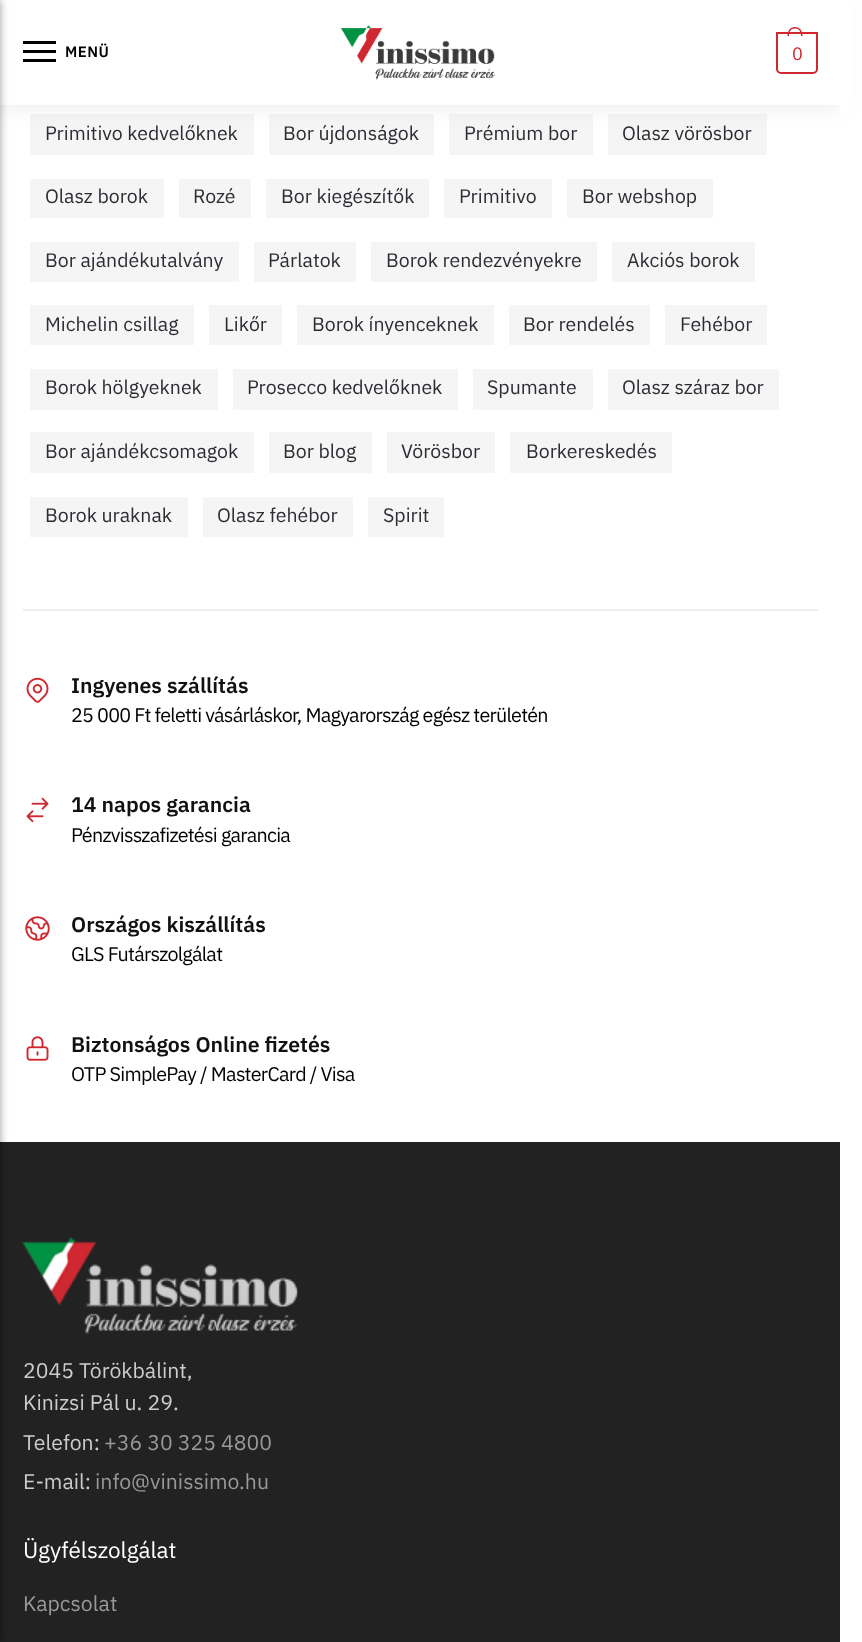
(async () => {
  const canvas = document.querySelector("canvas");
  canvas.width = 862;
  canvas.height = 1642;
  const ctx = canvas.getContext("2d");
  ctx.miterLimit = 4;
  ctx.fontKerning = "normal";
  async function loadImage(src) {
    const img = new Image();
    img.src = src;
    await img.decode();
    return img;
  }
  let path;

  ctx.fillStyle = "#ffffff";
  ctx.fillRect(0, 0, 862, 1642);
  for (const [x, y, w, h, color] of [
    [30, 114, 224, 41, "#f5f5f5"],
    [269, 114, 165, 41, "#f5f5f5"],
    [449, 114, 144, 41, "#f5f5f5"],
    [608, 114, 159, 41, "#f5f5f5"],
  ]) {
    ctx.fillStyle = color;
    ctx.fillRect(x, y, w, h);
  }
  ctx.fillStyle = "rgba(0, 0, 0, 0.08)";
  ctx.filter = "blur(11px)";
  ctx.beginPath();
  ctx.rect(0, 2, 840, 105);
  ctx.fill();
  ctx.filter = "none";
  ctx.fillStyle = "#ffffff";
  ctx.fillRect(0, 0, 840, 105);
  ctx.fillStyle = "#222222";
  ctx.fillRect(0, 1142, 840, 500);
  ctx.fillStyle = "rgba(0, 0, 0, 0.4)";
  ctx.filter = "blur(4px)";
  ctx.beginPath();
  ctx.rect(-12, 0, 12, 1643);
  ctx.fill();
  ctx.filter = "none";
  for (const [x, y, w, h, color] of [
    [23, 41, 33, 3, "#000000"],
    [23, 50, 33, 3, "#000000"],
    [23, 59, 33, 3, "#000000"],
  ]) {
    ctx.fillStyle = color;
    ctx.fillRect(x, y, w, h);
  }
  ctx.drawImage(await loadImage("img/1.png"), 340, 25, 155, 55);
  ctx.beginPath();
  ctx.roundRect(777, 33, 40, 40, [0, 0, 4, 4]);
  ctx.strokeStyle = "#d02831";
  ctx.lineWidth = 2;
  ctx.stroke();
  ctx.fillStyle = "#d02831";
  path = new Path2D("M795 27C800.5 27 802.5 31.5 802.5 36H787.5C787.5 31.5 789.5 27 795 27ZM795 28.5C799.5 28.5 801 32 801 36H789C789 32 790.5 28.5 795 28.5Z");
  ctx.fill(path, "evenodd");
  for (const [x, y, w, h, color] of [
    [840, 0, 13, 114, "#ffffff"],
    [23, 609, 795, 2, "#eeeeee"],
    [30, 179, 134, 39, "#f5f5f5"],
    [179, 179, 72, 39, "#f5f5f5"],
    [266, 179, 163, 39, "#f5f5f5"],
    [444, 179, 108, 39, "#f5f5f5"],
    [567, 179, 146, 39, "#f5f5f5"],
    [30, 242, 209, 40, "#f5f5f5"],
    [254, 242, 102, 40, "#f5f5f5"],
    [371, 242, 226, 40, "#f5f5f5"],
    [612, 242, 143, 40, "#f5f5f5"],
    [30, 305, 164, 40, "#f5f5f5"],
    [209, 305, 73, 40, "#f5f5f5"],
    [297, 305, 197, 40, "#f5f5f5"],
    [509, 305, 141, 40, "#f5f5f5"],
    [665, 305, 102, 40, "#f5f5f5"],
    [30, 369, 188, 41, "#f5f5f5"],
    [233, 369, 225, 41, "#f5f5f5"],
    [473, 369, 120, 41, "#f5f5f5"],
    [608, 369, 171, 41, "#f5f5f5"],
    [30, 432, 224, 41, "#f5f5f5"],
    [269, 432, 103, 41, "#f5f5f5"],
    [387, 432, 108, 41, "#f5f5f5"],
    [510, 432, 162, 41, "#f5f5f5"],
    [30, 497, 158, 40, "#f5f5f5"],
    [203, 497, 150, 40, "#f5f5f5"],
    [368, 497, 76, 40, "#f5f5f5"],
  ]) {
    ctx.fillStyle = color;
    ctx.fillRect(x, y, w, h);
  }
  ctx.drawImage(await loadImage("img/2.png"), 26, 677, 23, 26);
  ctx.drawImage(await loadImage("img/3.png"), 26, 797, 23, 26);
  ctx.drawImage(await loadImage("img/4.png"), 25, 916, 25, 25);
  ctx.drawImage(await loadImage("img/5.png"), 26, 1036, 23, 25);
  ctx.drawImage(await loadImage("img/6.png"), 22, 1237, 276, 97);
  ctx.letterSpacing = "0.5px";
  ctx.font = "600 15px IBM Plex Sans";
  ctx.fillStyle = "#000000";
  ctx.fillText("MENÜ", 65, 57);
  ctx.letterSpacing = "-1px";
  ctx.font = "18px IBM Plex Sans";
  ctx.fillStyle = "#d02831";
  ctx.fillText("0", 792, 60);
  ctx.letterSpacing = "0px";
  ctx.font = "19.5px IBM Plex Sans";
  ctx.fillStyle = "#2c2d33";
  for (const [text, x, y] of [
    ["Primitivo kedvelőknek", 45, 140],
    ["Bor újdonságok", 283, 140],
    ["Prémium bor", 464, 140],
    ["Olasz vörösbor", 622, 140],
    ["Olasz borok", 45, 203],
    ["Rozé", 193, 203],
    ["Bor kiegészítők", 281, 203],
    ["Primitivo", 459, 203],
    ["Bor webshop", 582, 203],
    ["Bor ajándékutalvány", 45, 267],
    ["Párlatok", 268, 267],
    ["Borok rendezvényekre", 386, 267],
    ["Akciós borok", 627, 267],
    ["Michelin csillag", 45, 331],
    ["Likőr", 224, 331],
    ["Borok ínyenceknek", 312, 331],
    ["Bor rendelés", 523, 331],
    ["Fehébor", 680, 331],
    ["Borok hölgyeknek", 45, 394],
    ["Prosecco kedvelőknek", 247, 394],
    ["Spumante", 487, 394],
    ["Olasz száraz bor", 622, 394],
    ["Bor ajándékcsomagok", 45, 458],
    ["Bor blog", 283, 458],
    ["Vörösbor", 401, 458],
    ["Borkereskedés", 526, 458],
    ["Borok uraknak", 45, 522],
    ["Olasz fehébor", 217, 522],
    ["Spirit", 383, 522],
  ]) {
    ctx.fillText(text, x, y);
  }
  ctx.font = "600 21.25px IBM Plex Sans";
  ctx.fillStyle = "#111111";
  ctx.fillText("Ingyenes szállítás", 71, 693);
  ctx.letterSpacing = "-0.75px";
  ctx.font = "19.75px IBM Plex Sans";
  ctx.fillStyle = "#000000";
  ctx.fillText("25 000 Ft feletti vásárláskor, Magyarország egész területén", 71, 722);
  ctx.letterSpacing = "0px";
  ctx.font = "600 21.25px IBM Plex Sans";
  ctx.fillStyle = "#111111";
  ctx.fillText("14 napos garancia", 71, 812);
  ctx.letterSpacing = "-0.75px";
  ctx.font = "19.75px IBM Plex Sans";
  ctx.fillStyle = "#000000";
  ctx.fillText("Pénzvisszafizetési garancia", 71, 842);
  ctx.letterSpacing = "0px";
  ctx.font = "600 21.25px IBM Plex Sans";
  ctx.fillStyle = "#111111";
  ctx.fillText("Országos kiszállítás", 71, 932);
  ctx.letterSpacing = "-0.75px";
  ctx.font = "19.75px IBM Plex Sans";
  ctx.fillStyle = "#000000";
  ctx.fillText("GLS Futárszolgálat", 71, 961);
  ctx.letterSpacing = "0px";
  ctx.font = "600 21.25px IBM Plex Sans";
  ctx.fillStyle = "#111111";
  ctx.fillText("Biztonságos Online fizetés", 71, 1052);
  ctx.letterSpacing = "-0.75px";
  ctx.font = "19.75px IBM Plex Sans";
  ctx.fillStyle = "#000000";
  ctx.fillText("OTP SimplePay / MasterCard / Visa", 71, 1081);
  ctx.letterSpacing = "0px";
  ctx.font = "21.25px IBM Plex Sans";
  ctx.fillStyle = "#cccccc";
  for (const [text, x, y] of [
    ["2045 Törökbálint,", 23, 1378],
    ["Kinizsi Pál u. 29.", 23, 1410],
    ["Telefon:", 23, 1450],
  ]) {
    ctx.fillText(text, x, y);
  }
  ctx.fillStyle = "#999999";
  ctx.fillText("+36 30 325 4800", 104, 1450);
  ctx.fillStyle = "#cccccc";
  ctx.fillText("E-mail:", 23, 1489);
  ctx.fillStyle = "#999999";
  ctx.fillText("info@vinissimo.hu", 95, 1489);
  ctx.font = "22.5px IBM Plex Sans";
  ctx.fillStyle = "#ffffff";
  ctx.fillText("Ügyfélszolgálat", 23, 1558);
  ctx.font = "21.25px IBM Plex Sans";
  ctx.fillStyle = "#999999";
  ctx.fillText("Kapcsolat", 23, 1611);
})();
